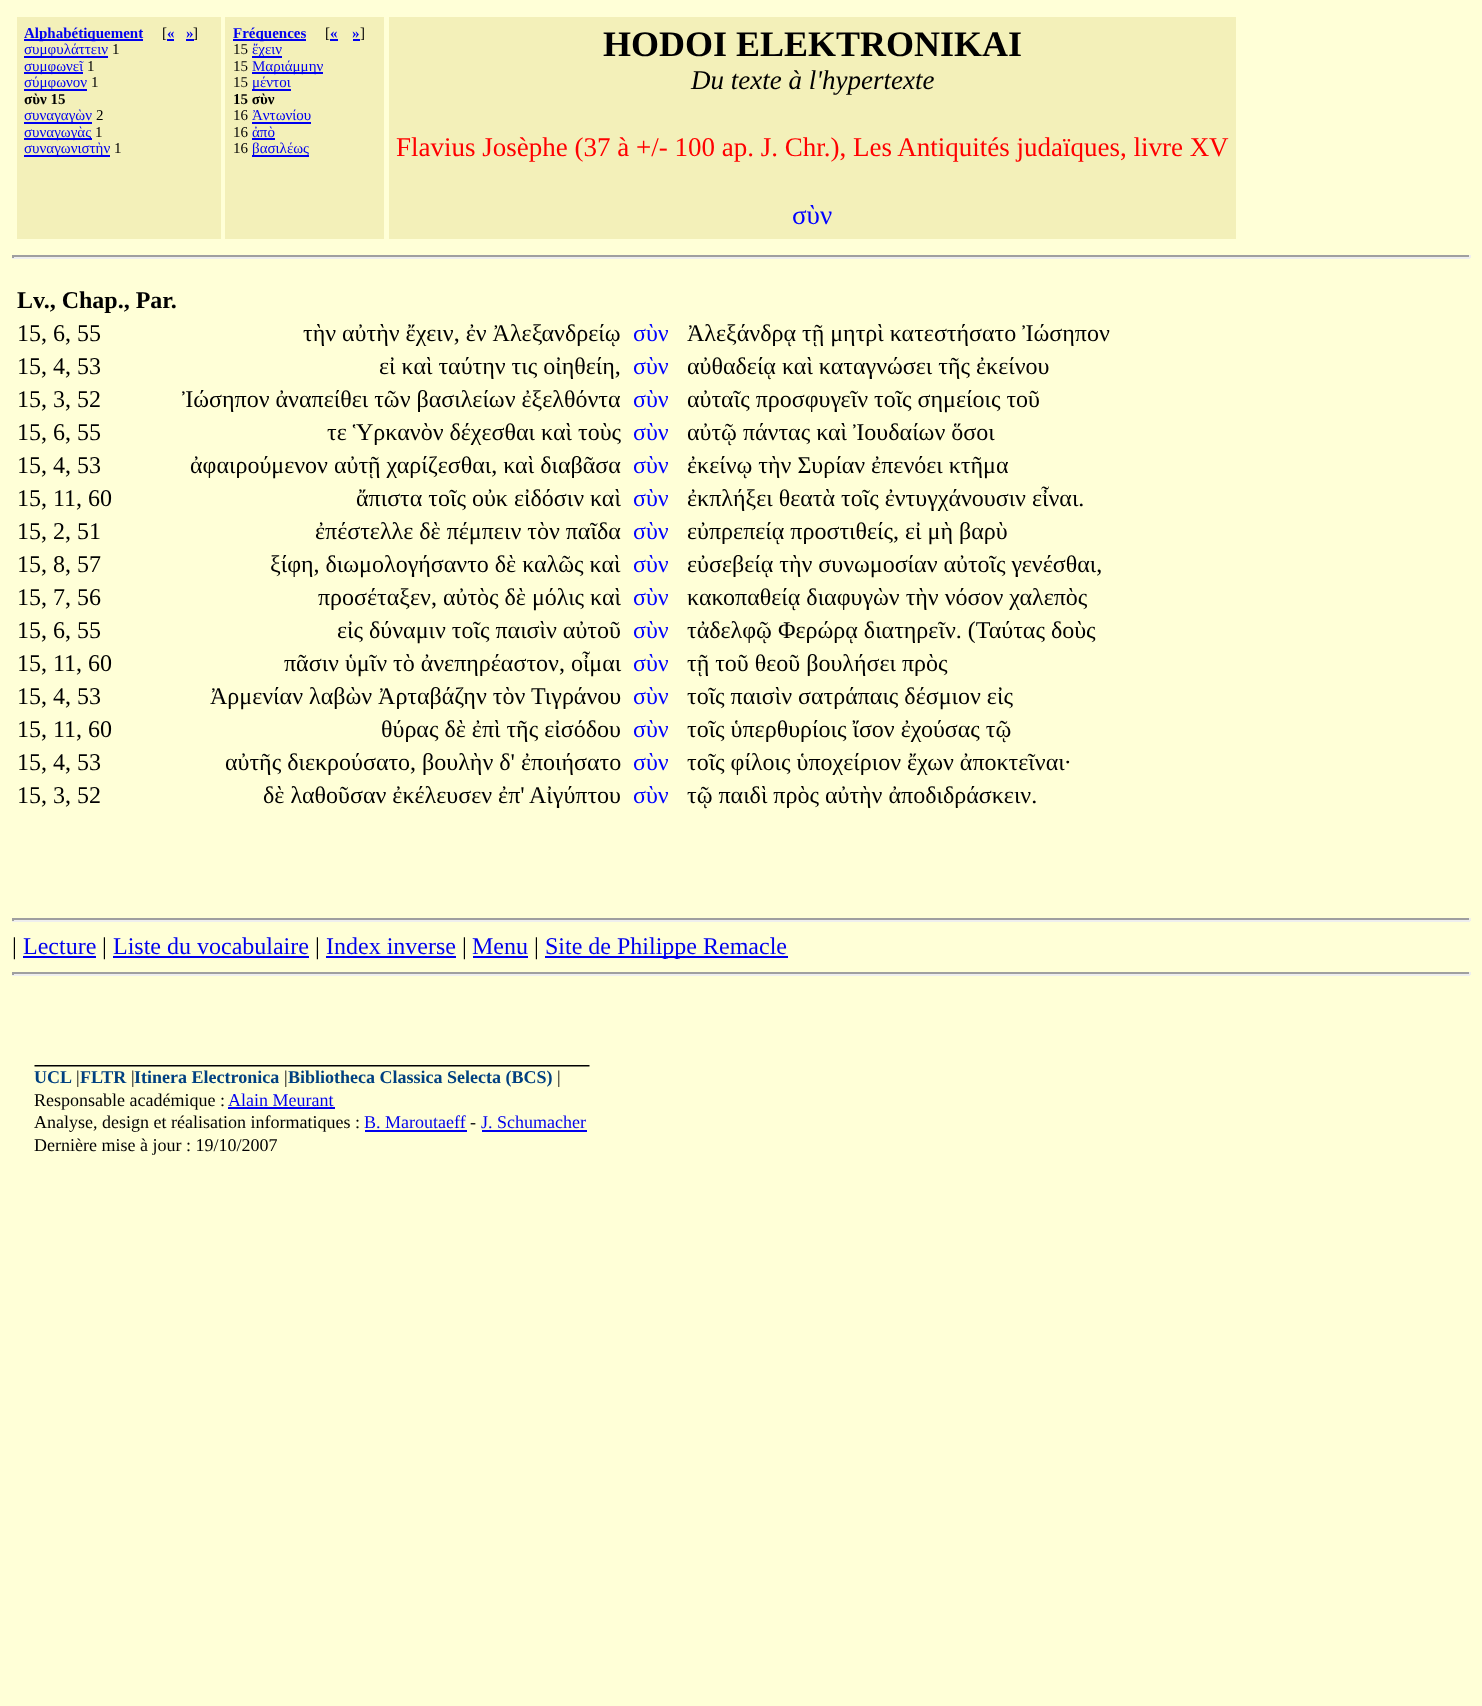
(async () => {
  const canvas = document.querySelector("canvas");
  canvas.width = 1482;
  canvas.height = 1706;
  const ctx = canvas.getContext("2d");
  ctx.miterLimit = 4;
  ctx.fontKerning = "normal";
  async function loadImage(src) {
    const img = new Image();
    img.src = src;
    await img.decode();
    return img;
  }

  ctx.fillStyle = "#ffffd7";
  ctx.fillRect(0, 0, 1482, 1706);
  for (const [x, y, w, h, color] of [
    [17, 17, 204, 222, "#f3f0b9"],
    [24, 39, 119, 2, "#0000ee"],
    [167, 39, 7, 2, "#0000ee"],
    [186, 39, 8, 2, "#0000ee"],
    [24, 56, 84, 2, "#0000ee"],
    [24, 72, 59, 2, "#0000ee"],
    [24, 89, 63, 2, "#0000ee"],
    [24, 122, 68, 2, "#0000ee"],
    [24, 138, 68, 2, "#0000ee"],
    [24, 155, 86, 2, "#0000ee"],
    [225, 17, 159, 222, "#f3f0b9"],
    [233, 39, 73, 2, "#0000ee"],
    [330, 39, 8, 2, "#0000ee"],
    [353, 39, 7, 2, "#0000ee"],
    [252, 56, 30, 2, "#0000ee"],
    [252, 72, 71, 2, "#0000ee"],
    [252, 89, 39, 2, "#0000ee"],
    [252, 122, 59, 2, "#0000ee"],
    [252, 138, 23, 2, "#0000ee"],
    [252, 155, 57, 2, "#0000ee"],
    [389, 17, 847, 222, "#f3f0b9"],
    [12, 255, 1458, 2, "#9f9f9f"],
    [1469, 255, 2, 3, "#eeeeee"],
    [12, 257, 1458, 2, "#eeeeee"],
    [12, 255, 2, 3, "#9f9f9f"],
    [12, 918, 1458, 2, "#9f9f9f"],
    [1469, 918, 2, 3, "#eeeeee"],
    [12, 920, 1458, 2, "#eeeeee"],
    [12, 918, 2, 3, "#9f9f9f"],
    [23, 956, 73, 2, "#0000ee"],
    [113, 956, 196, 2, "#0000ee"],
    [326, 956, 130, 2, "#0000ee"],
    [473, 956, 55, 2, "#0000ee"],
    [545, 956, 243, 2, "#0000ee"],
    [12, 972, 1458, 2, "#9f9f9f"],
    [1469, 972, 2, 3, "#eeeeee"],
    [12, 974, 1458, 2, "#eeeeee"],
    [12, 972, 2, 3, "#9f9f9f"],
  ]) {
    ctx.fillStyle = color;
    ctx.fillRect(x, y, w, h);
  }
  ctx.drawImage(await loadImage("img/1.png"), 34, 1065, 556, 2);
  for (const [x, y, w, h, color] of [
    [228, 1107, 107, 2, "#0000ee"],
    [365, 1130, 102, 2, "#0000ee"],
    [482, 1130, 105, 2, "#0000ee"],
  ]) {
    ctx.fillStyle = color;
    ctx.fillRect(x, y, w, h);
  }
  ctx.font = "bold 15px Liberation Serif";
  ctx.fillText("Alphabétiquement", 24, 38);
  ctx.font = "15px Liberation Serif";
  ctx.fillStyle = "#000000";
  ctx.fillText("[", 162, 38);
  ctx.font = "bold 15px Liberation Serif";
  ctx.fillStyle = "#0000ee";
  ctx.fillText("«", 167, 38);
  ctx.fillText("»", 186, 38);
  ctx.font = "15px Liberation Serif";
  ctx.fillStyle = "#000000";
  ctx.fillText("]", 193, 38);
  ctx.fillStyle = "#0000ee";
  ctx.fillText("συμφυλάττειν", 24, 54);
  ctx.fillStyle = "#000000";
  ctx.fillText("1", 112, 54);
  ctx.fillStyle = "#0000ee";
  ctx.fillText("συμφωνεῖ", 24, 71);
  ctx.fillStyle = "#000000";
  ctx.fillText("1", 87, 71);
  ctx.fillStyle = "#0000ee";
  ctx.fillText("σύμφωνον", 24, 87);
  ctx.fillStyle = "#000000";
  ctx.fillText("1", 91, 87);
  ctx.font = "bold 15px Liberation Serif";
  ctx.fillText("σὺν 15", 24, 104);
  ctx.font = "15px Liberation Serif";
  ctx.fillStyle = "#0000ee";
  ctx.fillText("συναγαγὼν", 24, 120);
  ctx.fillStyle = "#000000";
  ctx.fillText("2", 96, 120);
  ctx.fillStyle = "#0000ee";
  ctx.fillText("συναγωγὰς", 24, 137);
  ctx.fillStyle = "#000000";
  ctx.fillText("1", 95, 137);
  ctx.fillStyle = "#0000ee";
  ctx.fillText("συναγωνιστὴν", 24, 153);
  ctx.fillStyle = "#000000";
  ctx.fillText("1", 114, 153);
  ctx.font = "bold 15px Liberation Serif";
  ctx.fillStyle = "#0000ee";
  ctx.fillText("Fréquences", 233, 38);
  ctx.font = "15px Liberation Serif";
  ctx.fillStyle = "#000000";
  ctx.fillText("[", 325, 38);
  ctx.font = "bold 15px Liberation Serif";
  ctx.fillStyle = "#0000ee";
  ctx.fillText("«", 330, 38);
  ctx.fillText("»", 352, 38);
  ctx.font = "15px Liberation Serif";
  ctx.fillStyle = "#000000";
  ctx.fillText("]", 360, 38);
  ctx.fillText("15", 233, 54);
  ctx.fillStyle = "#0000ee";
  ctx.fillText("ἔχειν", 252, 54);
  ctx.fillStyle = "#000000";
  ctx.fillText("15", 233, 71);
  ctx.fillStyle = "#0000ee";
  ctx.fillText("Μαριάμμην", 252, 71);
  ctx.fillStyle = "#000000";
  ctx.fillText("15", 233, 87);
  ctx.fillStyle = "#0000ee";
  ctx.fillText("μέντοι", 252, 87);
  ctx.font = "bold 15px Liberation Serif";
  ctx.fillStyle = "#000000";
  ctx.fillText("15 σὺν", 233, 104);
  ctx.font = "15px Liberation Serif";
  ctx.fillText("16", 233, 120);
  ctx.fillStyle = "#0000ee";
  ctx.fillText("Ἀντωνίου", 252, 120);
  ctx.fillStyle = "#000000";
  ctx.fillText("16", 233, 137);
  ctx.fillStyle = "#0000ee";
  ctx.fillText("ἀπὸ", 252, 137);
  ctx.fillStyle = "#000000";
  ctx.fillText("16", 233, 153);
  ctx.fillStyle = "#0000ee";
  ctx.fillText("βασιλέως", 252, 153);
  ctx.font = "bold 36px Liberation Serif";
  ctx.fillStyle = "#000000";
  ctx.fillText("HODOI ELEKTRONIKAI", 603, 56);
  ctx.font = "italic 27px Liberation Serif";
  ctx.fillText("Du texte à l'hypertexte", 691, 89);
  ctx.font = "27px Liberation Serif";
  ctx.fillStyle = "#ff0000";
  ctx.fillText("Flavius Josèphe (37 à +/- 100 ap. J. Chr.), Les Antiquités judaïques, livre XV", 396, 156);
  ctx.fillStyle = "#0000ff";
  ctx.fillText("σὺν", 792, 224);
  ctx.font = "bold 24px Liberation Serif";
  ctx.fillStyle = "#000000";
  ctx.fillText("Lv., Chap., Par.", 17, 308);
  ctx.font = "24px Liberation Serif";
  ctx.fillText("15, 6, 55", 17, 341);
  ctx.fillText("τὴν αὐτὴν ἔχειν, ἐν Ἀλεξανδρείῳ", 303, 341);
  ctx.fillStyle = "#0000ff";
  ctx.fillText("σὺν", 633, 341);
  ctx.fillStyle = "#000000";
  for (const [text, x, y] of [
    ["Ἀλεξάνδρᾳ τῇ μητρὶ κατεστήσατο Ἰώσηπον", 687, 341],
    ["15, 4, 53", 17, 374],
    ["εἰ καὶ ταύτην τις οἰηθείη,", 379, 374],
  ]) {
    ctx.fillText(text, x, y);
  }
  ctx.fillStyle = "#0000ff";
  ctx.fillText("σὺν", 633, 374);
  ctx.fillStyle = "#000000";
  for (const [text, x, y] of [
    ["αὐθαδείᾳ καὶ καταγνώσει τῆς ἐκείνου", 687, 374],
    ["15, 3, 52", 17, 407],
    ["Ἰώσηπον ἀναπείθει τῶν βασιλείων ἐξελθόντα", 182, 407],
  ]) {
    ctx.fillText(text, x, y);
  }
  ctx.fillStyle = "#0000ff";
  ctx.fillText("σὺν", 633, 407);
  ctx.fillStyle = "#000000";
  for (const [text, x, y] of [
    ["αὐταῖς προσφυγεῖν τοῖς σημείοις τοῦ", 687, 407],
    ["15, 6, 55", 17, 440],
    ["τε Ὑρκανὸν δέχεσθαι καὶ τοὺς", 327, 440],
  ]) {
    ctx.fillText(text, x, y);
  }
  ctx.fillStyle = "#0000ff";
  ctx.fillText("σὺν", 633, 440);
  ctx.fillStyle = "#000000";
  for (const [text, x, y] of [
    ["αὐτῷ πάντας καὶ Ἰουδαίων ὅσοι", 687, 440],
    ["15, 4, 53", 17, 473],
    ["ἀφαιρούμενον αὐτῇ χαρίζεσθαι, καὶ διαβᾶσα", 190, 473],
  ]) {
    ctx.fillText(text, x, y);
  }
  ctx.fillStyle = "#0000ff";
  ctx.fillText("σὺν", 633, 473);
  ctx.fillStyle = "#000000";
  for (const [text, x, y] of [
    ["ἐκείνῳ τὴν Συρίαν ἐπενόει κτῆμα", 687, 473],
    ["15, 11, 60", 17, 506],
    ["ἄπιστα τοῖς οὐκ εἰδόσιν καὶ", 356, 506],
  ]) {
    ctx.fillText(text, x, y);
  }
  ctx.fillStyle = "#0000ff";
  ctx.fillText("σὺν", 633, 506);
  ctx.fillStyle = "#000000";
  for (const [text, x, y] of [
    ["ἐκπλήξει θεατὰ τοῖς ἐντυγχάνουσιν εἶναι.", 687, 506],
    ["15, 2, 51", 17, 539],
    ["ἐπέστελλε δὲ πέμπειν τὸν παῖδα", 315, 539],
  ]) {
    ctx.fillText(text, x, y);
  }
  ctx.fillStyle = "#0000ff";
  ctx.fillText("σὺν", 633, 539);
  ctx.fillStyle = "#000000";
  for (const [text, x, y] of [
    ["εὐπρεπείᾳ προστιθείς, εἰ μὴ βαρὺ", 687, 539],
    ["15, 8, 57", 17, 572],
    ["ξίφη, διωμολογήσαντο δὲ καλῶς καὶ", 270, 572],
  ]) {
    ctx.fillText(text, x, y);
  }
  ctx.fillStyle = "#0000ff";
  ctx.fillText("σὺν", 633, 572);
  ctx.fillStyle = "#000000";
  for (const [text, x, y] of [
    ["εὐσεβείᾳ τὴν συνωμοσίαν αὐτοῖς γενέσθαι,", 687, 572],
    ["15, 7, 56", 17, 605],
    ["προσέταξεν, αὐτὸς δὲ μόλις καὶ", 318, 605],
  ]) {
    ctx.fillText(text, x, y);
  }
  ctx.fillStyle = "#0000ff";
  ctx.fillText("σὺν", 633, 605);
  ctx.fillStyle = "#000000";
  for (const [text, x, y] of [
    ["κακοπαθείᾳ διαφυγὼν τὴν νόσον χαλεπὸς", 687, 605],
    ["15, 6, 55", 17, 638],
    ["εἰς δύναμιν τοῖς παισὶν αὐτοῦ", 337, 638],
  ]) {
    ctx.fillText(text, x, y);
  }
  ctx.fillStyle = "#0000ff";
  ctx.fillText("σὺν", 633, 638);
  ctx.fillStyle = "#000000";
  for (const [text, x, y] of [
    ["τἀδελφῷ Φερώρᾳ διατηρεῖν. (Ταύτας δοὺς", 687, 638],
    ["15, 11, 60", 17, 671],
    ["πᾶσιν ὑμῖν τὸ ἀνεπηρέαστον, οἶμαι", 284, 671],
  ]) {
    ctx.fillText(text, x, y);
  }
  ctx.fillStyle = "#0000ff";
  ctx.fillText("σὺν", 633, 671);
  ctx.fillStyle = "#000000";
  for (const [text, x, y] of [
    ["τῇ τοῦ θεοῦ βουλήσει πρὸς", 687, 671],
    ["15, 4, 53", 17, 704],
    ["Ἀρμενίαν λαβὼν Ἀρταβάζην τὸν", 210, 704],
    ["Τιγράνου", 531, 704],
  ]) {
    ctx.fillText(text, x, y);
  }
  ctx.fillStyle = "#0000ff";
  ctx.fillText("σὺν", 633, 704);
  ctx.fillStyle = "#000000";
  for (const [text, x, y] of [
    ["τοῖς παισὶν σατράπαις δέσμιον εἰς", 687, 704],
    ["15, 11, 60", 17, 737],
    ["θύρας δὲ ἐπὶ τῆς εἰσόδου", 381, 737],
  ]) {
    ctx.fillText(text, x, y);
  }
  ctx.fillStyle = "#0000ff";
  ctx.fillText("σὺν", 633, 737);
  ctx.fillStyle = "#000000";
  for (const [text, x, y] of [
    ["τοῖς ὑπερθυρίοις ἴσον ἐχούσας τῷ", 687, 737],
    ["15, 4, 53", 17, 770],
    ["αὐτῆς διεκρούσατο, βουλὴν δ' ἐποιήσατο", 225, 770],
  ]) {
    ctx.fillText(text, x, y);
  }
  ctx.fillStyle = "#0000ff";
  ctx.fillText("σὺν", 633, 770);
  ctx.fillStyle = "#000000";
  for (const [text, x, y] of [
    ["τοῖς φίλοις ὑποχείριον ἔχων ἀποκτεῖναι·", 687, 770],
    ["15, 3, 52", 17, 803],
    ["δὲ λαθοῦσαν ἐκέλευσεν ἐπ'", 263, 803],
    ["Αἰγύπτου", 529, 803],
  ]) {
    ctx.fillText(text, x, y);
  }
  ctx.fillStyle = "#0000ff";
  ctx.fillText("σὺν", 633, 803);
  ctx.fillStyle = "#000000";
  ctx.fillText("τῷ παιδὶ πρὸς αὐτὴν ἀποδιδράσκειν.", 687, 803);
  ctx.fillText("|", 12, 954);
  ctx.fillStyle = "#0000ee";
  ctx.fillText("Lecture", 23, 954);
  ctx.fillStyle = "#000000";
  ctx.fillText("|", 102, 954);
  ctx.fillStyle = "#0000ee";
  ctx.fillText("Liste du vocabulaire", 113, 954);
  ctx.fillStyle = "#000000";
  ctx.fillText("|", 315, 954);
  ctx.fillStyle = "#0000ee";
  ctx.fillText("Index inverse", 326, 954);
  ctx.fillStyle = "#000000";
  ctx.fillText("|", 462, 954);
  ctx.fillStyle = "#0000ee";
  ctx.fillText("Menu", 472, 954);
  ctx.fillStyle = "#000000";
  ctx.fillText("|", 534, 954);
  ctx.fillStyle = "#0000ee";
  ctx.fillText("Site de Philippe Remacle", 545, 954);
  ctx.font = "bold 18px Liberation Serif";
  ctx.fillStyle = "#004080";
  ctx.fillText("UCL", 34, 1083);
  ctx.font = "18px Liberation Serif";
  ctx.fillStyle = "#000000";
  ctx.fillText("|", 76, 1083);
  ctx.font = "bold 18px Liberation Serif";
  ctx.fillStyle = "#004080";
  ctx.fillText("FLTR", 80, 1083);
  ctx.font = "18px Liberation Serif";
  ctx.fillStyle = "#000000";
  ctx.fillText("|", 131, 1083);
  ctx.font = "bold 18px Liberation Serif";
  ctx.fillStyle = "#004080";
  ctx.fillText("Itinera Electronica", 134, 1083);
  ctx.font = "18px Liberation Serif";
  ctx.fillStyle = "#000000";
  ctx.fillText("|", 284, 1083);
  ctx.font = "bold 18px Liberation Serif";
  ctx.fillStyle = "#004080";
  ctx.fillText("Bibliotheca Classica Selecta (BCS)", 288, 1083);
  ctx.font = "18px Liberation Serif";
  ctx.fillStyle = "#000000";
  ctx.fillText("|", 557, 1083);
  ctx.fillText("Responsable académique :", 34, 1106);
  ctx.fillStyle = "#0000ee";
  ctx.fillText("Alain Meurant", 228, 1106);
  ctx.fillStyle = "#000000";
  ctx.fillText("Analyse, design et réalisation informatiques :", 34, 1128);
  ctx.fillStyle = "#0000ee";
  ctx.fillText("B. Maroutaeff", 364, 1128);
  ctx.fillStyle = "#000000";
  ctx.fillText("-", 470, 1128);
  ctx.fillStyle = "#0000ee";
  ctx.fillText("J. Schumacher", 481, 1128);
  ctx.fillStyle = "#000000";
  ctx.fillText("Dernière mise à jour : 19/10/2007", 34, 1151);
})();
